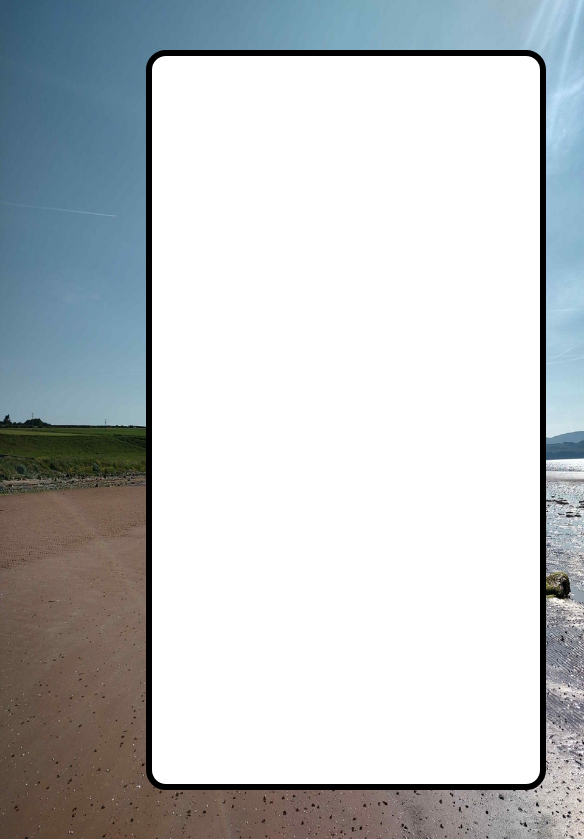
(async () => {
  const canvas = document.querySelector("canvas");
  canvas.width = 584;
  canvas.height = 839;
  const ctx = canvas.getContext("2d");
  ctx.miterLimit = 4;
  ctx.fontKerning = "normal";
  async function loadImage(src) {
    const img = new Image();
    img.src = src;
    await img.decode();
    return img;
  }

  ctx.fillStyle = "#ffffff";
  ctx.fillRect(0, 0, 584, 839);
  ctx.drawImage(await loadImage("img/1.png"), 0, 0, 584, 839);
  ctx.beginPath();
  ctx.roundRect(149, 53, 394, 734, 17);
  ctx.fill();
  ctx.strokeStyle = "#000000";
  ctx.lineWidth = 6;
  ctx.stroke();
})();
